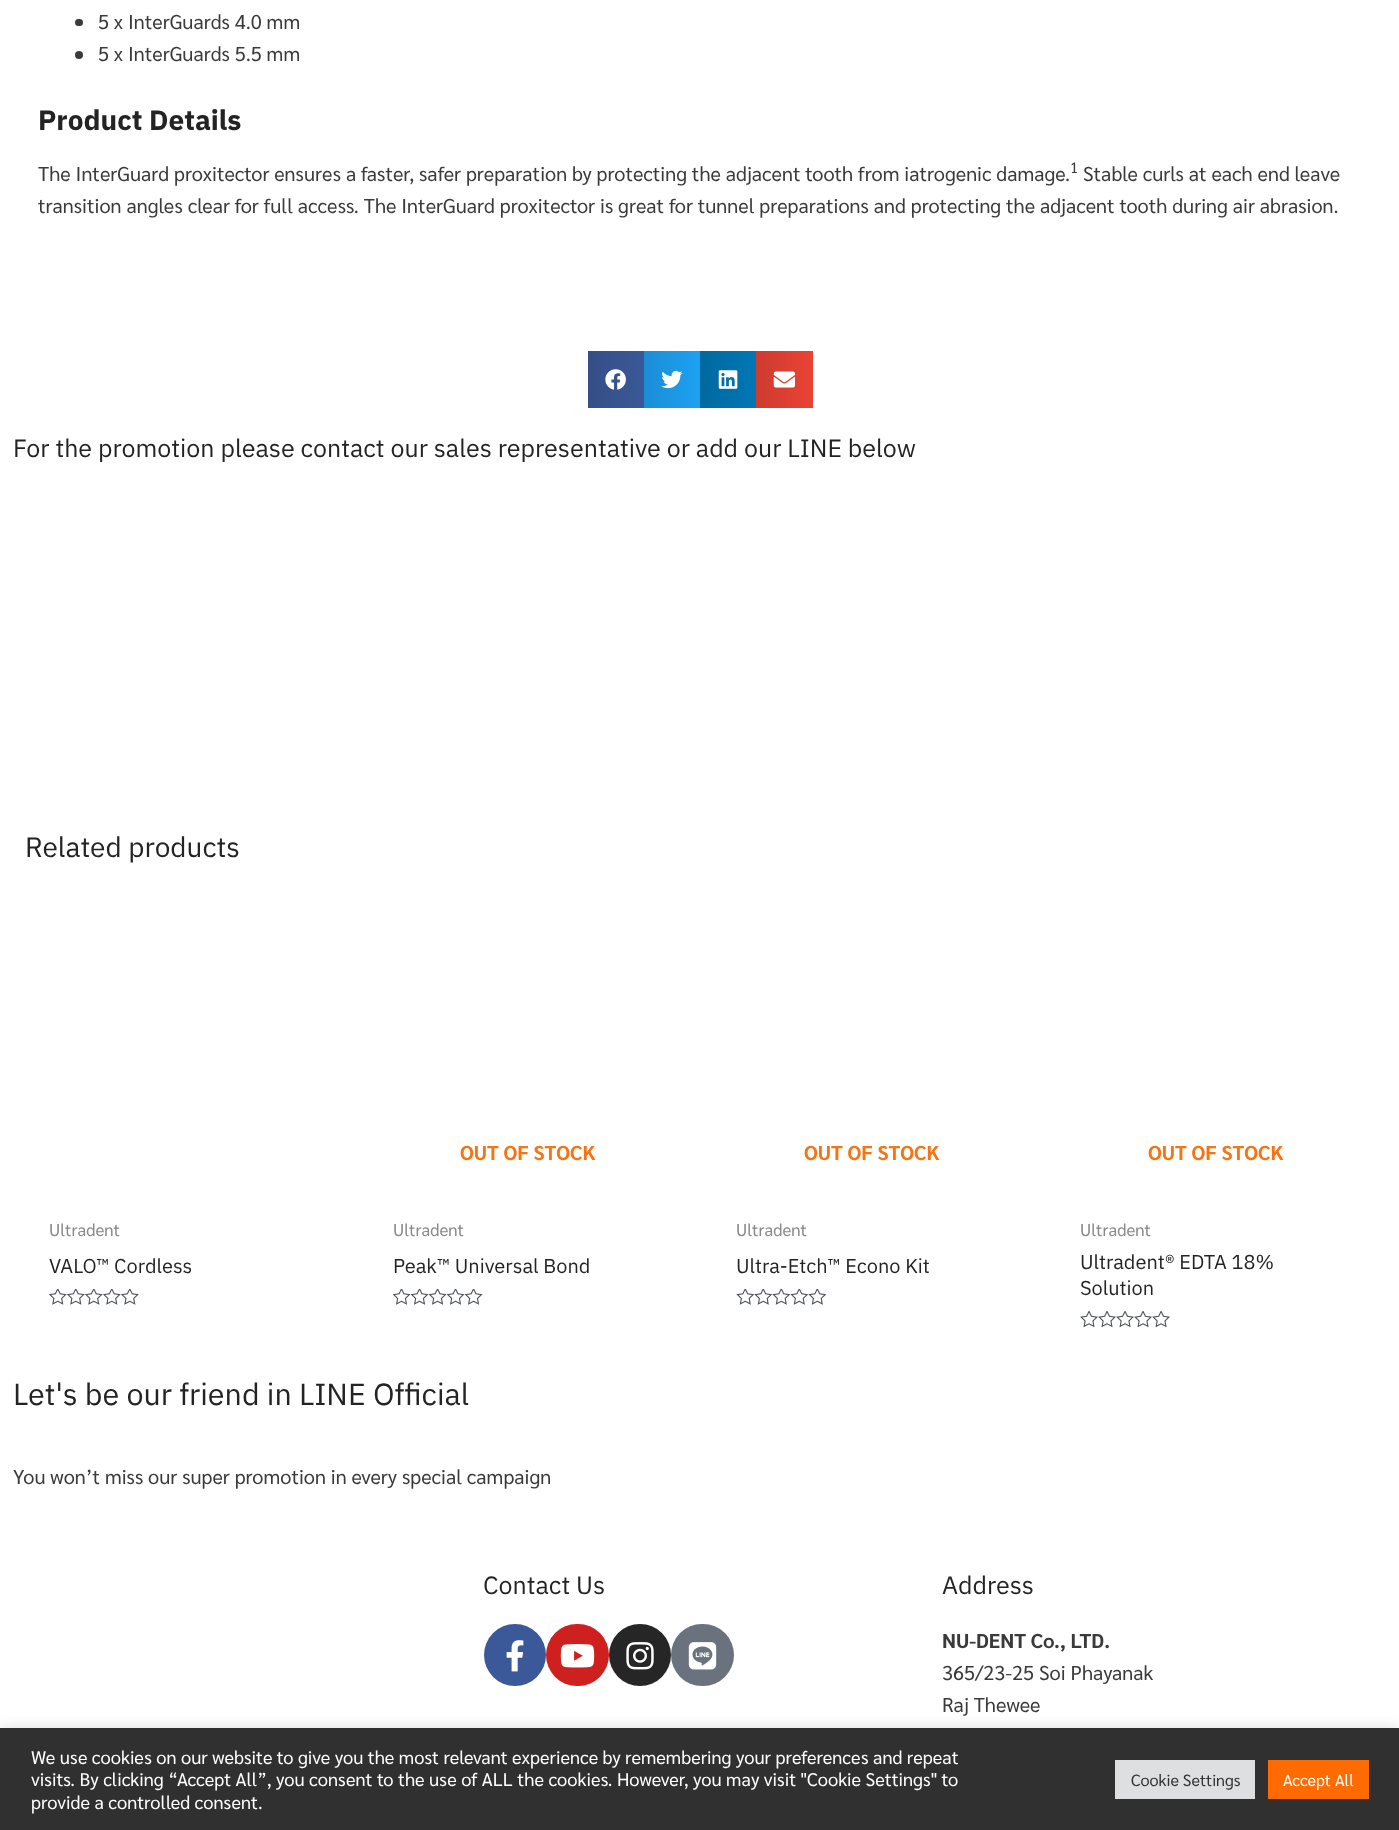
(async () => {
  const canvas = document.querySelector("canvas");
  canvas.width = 1399;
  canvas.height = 1830;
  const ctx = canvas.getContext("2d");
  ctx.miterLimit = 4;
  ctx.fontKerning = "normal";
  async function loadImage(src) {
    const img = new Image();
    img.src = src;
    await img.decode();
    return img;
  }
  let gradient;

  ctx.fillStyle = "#ffffff";
  ctx.fillRect(0, 0, 1399, 1830);
  ctx.fillStyle = "#3a3a3a";
  ctx.beginPath();
  ctx.roundRect(75, 19, 8, 7, 3.5);
  ctx.fill();
  ctx.beginPath();
  ctx.arc(79, 55, 4, 0, Math.PI * 2);
  ctx.fill();
  gradient = ctx.createLinearGradient(588, 379, 644, 379);
  gradient.addColorStop(0, "#344e86");
  gradient.addColorStop(1, "#3b5998");
  ctx.fillStyle = gradient;
  ctx.fillRect(588, 351, 56, 57);
  ctx.drawImage(await loadImage("img/1.png"), 605, 369, 21, 21);
  gradient = ctx.createLinearGradient(644, 379, 700, 379);
  gradient.addColorStop(0, "#1a8ed5");
  gradient.addColorStop(1, "#1da1f2");
  ctx.fillStyle = gradient;
  ctx.fillRect(644, 351, 56, 57);
  ctx.drawImage(await loadImage("img/2.png"), 661, 370, 22, 19);
  gradient = ctx.createLinearGradient(700, 379, 756, 379);
  gradient.addColorStop(0, "#00699f");
  gradient.addColorStop(1, "#0077b5");
  ctx.fillStyle = gradient;
  ctx.fillRect(700, 351, 56, 57);
  ctx.drawImage(await loadImage("img/3.png"), 718, 370, 20, 19);
  gradient = ctx.createLinearGradient(756, 379, 813, 379);
  gradient.addColorStop(0, "#ce3b2f");
  gradient.addColorStop(1, "#ea4335");
  ctx.fillStyle = gradient;
  ctx.fillRect(756, 351, 57, 57);
  ctx.drawImage(await loadImage("img/4.png"), 773, 371, 22, 17);
  ctx.drawImage(await loadImage("img/5.png"), 49, 1289, 90, 16);
  ctx.drawImage(await loadImage("img/6.png"), 393, 1289, 90, 16);
  ctx.drawImage(await loadImage("img/7.png"), 736, 1289, 91, 16);
  ctx.drawImage(await loadImage("img/8.png"), 1080, 1311, 90, 17);
  ctx.fillStyle = "#3b5998";
  ctx.beginPath();
  ctx.arc(515, 1655, 31, 0, Math.PI * 2);
  ctx.fill();
  ctx.drawImage(await loadImage("img/9.png"), 506, 1640, 18, 32);
  ctx.fillStyle = "#cd201f";
  ctx.beginPath();
  ctx.roundRect(546, 1624, 63, 62, 31);
  ctx.fill();
  ctx.drawImage(await loadImage("img/10.png"), 560, 1644, 35, 24);
  ctx.fillStyle = "#262626";
  ctx.beginPath();
  ctx.arc(640, 1655, 31, 0, Math.PI * 2);
  ctx.fill();
  ctx.drawImage(await loadImage("img/11.png"), 626, 1642, 28, 28);
  ctx.fillStyle = "#69727d";
  ctx.beginPath();
  ctx.roundRect(671, 1624, 63, 62, 31);
  ctx.fill();
  ctx.drawImage(await loadImage("img/12.png"), 688, 1642, 29, 28);
  ctx.fillStyle = "rgba(172, 171, 171, 0.3)";
  ctx.filter = "blur(6px)";
  ctx.beginPath();
  ctx.rect(0, 1726, 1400, 103);
  ctx.fill();
  ctx.filter = "none";
  for (const [x, y, w, h, color] of [
    [0, 1728, 1399, 102, "#303030"],
    [1115, 1760, 140, 39, "#dedfe0"],
    [1268, 1760, 101, 39, "#ff6b00"],
  ]) {
    ctx.fillStyle = color;
    ctx.fillRect(x, y, w, h);
  }
  ctx.font = "20px Sarabun";
  ctx.fillStyle = "#3a3a3a";
  ctx.fillText("5 x InterGuards 4.0 mm", 98, 29);
  ctx.fillText("5 x InterGuards 5.5 mm", 98, 61);
  ctx.font = "bold 28px anuphan";
  ctx.fillStyle = "#232323";
  ctx.fillText("Product Details", 38, 130);
  ctx.font = "20px Sarabun";
  ctx.fillStyle = "#3a3a3a";
  ctx.fillText("The InterGuard proxitector ensures a faster, safer preparation by protecting the adjacent tooth from iatrogenic damage.", 38, 181);
  ctx.font = "15px Sarabun";
  ctx.fillText("1", 1070, 173);
  ctx.font = "20px Sarabun";
  ctx.fillText("Stable curls at each end leave", 1083, 181);
  ctx.fillText("transition angles clear for full access. The InterGuard proxitector is great for tunnel preparations and protecting the adjacent tooth during air abrasion.", 38, 213);
  ctx.font = "25px anuphan";
  ctx.fillStyle = "#232323";
  ctx.fillText("For the promotion please contact our sales representative or add our LINE below", 13, 457);
  ctx.font = "28px anuphan";
  ctx.fillText("Related products", 25, 857);
  ctx.font = "17px Sarabun";
  ctx.fillStyle = "#898989";
  ctx.fillText("Ultradent", 49, 1236);
  ctx.font = "20px anuphan";
  ctx.fillStyle = "#232323";
  ctx.fillText("VALO™ Cordless", 49, 1273);
  ctx.font = "bold 20px Sarabun";
  ctx.fillStyle = "#f77413";
  ctx.fillText("OUT OF STOCK", 460, 1160);
  ctx.font = "17px Sarabun";
  ctx.fillStyle = "#898989";
  ctx.fillText("Ultradent", 393, 1236);
  ctx.font = "20px anuphan";
  ctx.fillStyle = "#232323";
  ctx.fillText("Peak™ Universal Bond", 393, 1273);
  ctx.font = "bold 20px Sarabun";
  ctx.fillStyle = "#f77413";
  ctx.fillText("OUT OF STOCK", 804, 1160);
  ctx.font = "17px Sarabun";
  ctx.fillStyle = "#898989";
  ctx.fillText("Ultradent", 736, 1236);
  ctx.font = "20px anuphan";
  ctx.fillStyle = "#232323";
  ctx.fillText("Ultra-Etch™ Econo Kit", 736, 1273);
  ctx.font = "bold 20px Sarabun";
  ctx.fillStyle = "#f77413";
  ctx.fillText("OUT OF STOCK", 1148, 1160);
  ctx.font = "17px Sarabun";
  ctx.fillStyle = "#898989";
  ctx.fillText("Ultradent", 1080, 1236);
  ctx.font = "20px anuphan";
  ctx.fillStyle = "#232323";
  ctx.fillText("Ultradent® EDTA 18%", 1080, 1269);
  ctx.fillText("Solution", 1080, 1295);
  ctx.font = "30.5px anuphan";
  ctx.fillText("Let's be our friend in LINE Official", 13, 1405);
  ctx.font = "20px Sarabun";
  ctx.fillStyle = "#3a3a3a";
  ctx.fillText("You won’t miss our super promotion in every special campaign", 13, 1484);
  ctx.font = "25px anuphan";
  ctx.fillStyle = "#232323";
  ctx.fillText("Contact Us", 483, 1594);
  ctx.fillText("Address", 942, 1594);
  ctx.font = "bold 20px Sarabun";
  ctx.fillStyle = "#3a3a3a";
  ctx.fillText("NU-DENT Co., LTD.", 942, 1648);
  ctx.font = "20px Sarabun";
  ctx.fillText("365/23-25 Soi Phayanak", 942, 1680);
  ctx.fillText("Raj Thewee", 942, 1712);
  ctx.font = "18.33px Sarabun";
  ctx.fillStyle = "#ffffff";
  for (const [text, x, y] of [
    ["We use cookies on our website to give you the most relevant experience by remembering your preferences and repeat", 31, 1764],
    ["visits. By clicking “Accept All”, you consent to the use of ALL the cookies. However, you may visit \"Cookie Settings\" to", 31, 1786],
    ["provide a controlled consent.", 31, 1809],
  ]) {
    ctx.fillText(text, x, y);
  }
  ctx.font = "16.25px Sarabun";
  ctx.fillStyle = "#333333";
  ctx.fillText("Cookie Settings", 1131, 1786);
  ctx.fillStyle = "#ffffff";
  ctx.fillText("Accept All", 1283, 1786);
})();
